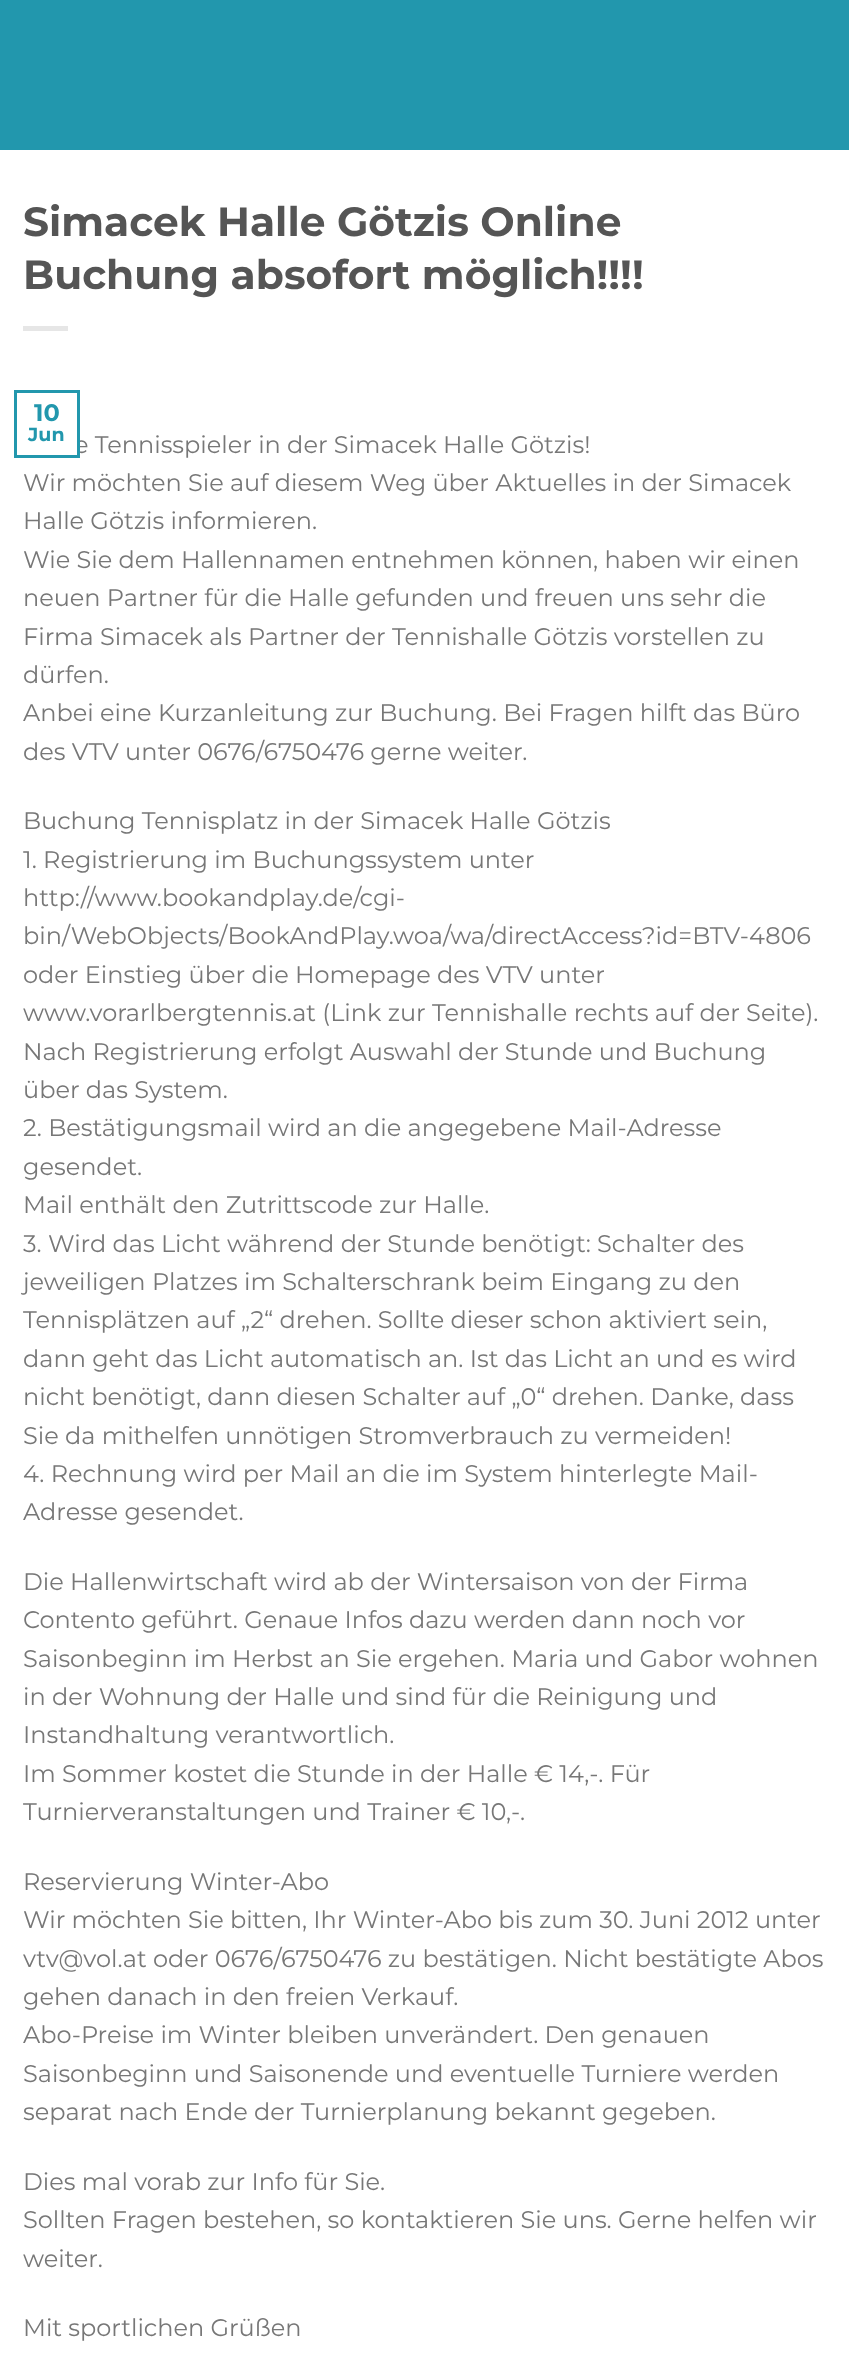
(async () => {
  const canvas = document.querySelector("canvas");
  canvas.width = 849;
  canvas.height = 2360;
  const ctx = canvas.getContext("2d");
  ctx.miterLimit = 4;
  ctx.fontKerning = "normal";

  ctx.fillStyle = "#ffffff";
  ctx.fillRect(0, 0, 849, 2360);
  ctx.fillStyle = "#2297ad";
  ctx.fillRect(0, 0, 849, 150);
  ctx.fillStyle = "#e6e6e6";
  ctx.fillRect(23, 326, 45, 5);
  ctx.font = "bold 40.75px Montserrat";
  ctx.fillStyle = "#555555";
  ctx.fillText("Simacek Halle Götzis Online", 23, 236);
  ctx.fillText("Buchung absofort möglich!!!!", 23, 289);
  ctx.font = "24px Montserrat";
  ctx.fillStyle = "#777777";
  ctx.fillText("e Tennisspieler in der Simacek Halle Götzis!", 74, 453);
  ctx.fillStyle = "#ffffff";
  ctx.fillRect(75, 442, 2, 10);
  ctx.strokeStyle = "#2297ad";
  ctx.lineWidth = 3;
  ctx.strokeRect(15.5, 391.5, 63, 65);
  ctx.font = "bold 19px Montserrat";
  ctx.fillStyle = "#2297ad";
  ctx.fillText("Jun", 28, 441);
  ctx.font = "bold 24px Montserrat";
  ctx.fillText("10", 34, 421);
  ctx.font = "24px Montserrat";
  ctx.fillStyle = "#777777";
  for (const [text, x, y] of [
    ["Wir möchten Sie auf diesem Weg über Aktuelles in der Simacek", 23, 491],
    ["Halle Götzis informieren.", 23, 529],
    ["Wie Sie dem Hallennamen entnehmen können, haben wir einen", 23, 568],
    ["neuen Partner für die Halle gefunden und freuen uns sehr die", 23, 606],
    ["Firma Simacek als Partner der Tennishalle Götzis vorstellen zu", 23, 645],
    ["dürfen.", 23, 683],
    ["Anbei eine Kurzanleitung zur Buchung. Bei Fragen hilft das Büro", 23, 721],
    ["des VTV unter 0676/6750476 gerne weiter.", 23, 760],
    ["Buchung Tennisplatz in der Simacek Halle Götzis", 23, 829],
    ["1. Registrierung im Buchungssystem unter", 23, 868],
    ["http://www.bookandplay.de/cgi-", 23, 906],
    ["bin/WebObjects/BookAndPlay.woa/wa/directAccess?id=BTV-4806", 23, 944],
    ["oder Einstieg über die Homepage des VTV unter", 23, 983],
    ["www.vorarlbergtennis.at (Link zur Tennishalle rechts auf der Seite).", 23, 1021],
    ["Nach Registrierung erfolgt Auswahl der Stunde und Buchung", 23, 1060],
    ["über das System.", 23, 1098],
    ["2. Bestätigungsmail wird an die angegebene Mail-Adresse", 23, 1136],
    ["gesendet.", 23, 1175],
    ["Mail enthält den Zutrittscode zur Halle.", 23, 1213],
    ["3. Wird das Licht während der Stunde benötigt: Schalter des", 23, 1252],
    ["jeweiligen Platzes im Schalterschrank beim Eingang zu den", 23, 1290],
    ["Tennisplätzen auf „2“ drehen. Sollte dieser schon aktiviert sein,", 23, 1328],
    ["dann geht das Licht automatisch an. Ist das Licht an und es wird", 23, 1367],
    ["nicht benötigt, dann diesen Schalter auf „0“ drehen. Danke, dass", 23, 1405],
    ["Sie da mithelfen unnötigen Stromverbrauch zu vermeiden!", 23, 1444],
    ["4. Rechnung wird per Mail an die im System hinterlegte Mail-", 23, 1482],
    ["Adresse gesendet.", 23, 1520],
    ["Die Hallenwirtschaft wird ab der Wintersaison von der Firma", 23, 1590],
    ["Contento geführt. Genaue Infos dazu werden dann noch vor", 23, 1628],
    ["Saisonbeginn im Herbst an Sie ergehen. Maria und Gabor wohnen", 23, 1667],
    ["in der Wohnung der Halle und sind für die Reinigung und", 23, 1705],
    ["Instandhaltung verantwortlich.", 23, 1743],
    ["Im Sommer kostet die Stunde in der Halle € 14,-. Für", 23, 1782],
    ["Turnierveranstaltungen und Trainer € 10,-.", 23, 1820],
    ["Reservierung Winter-Abo", 23, 1890],
    ["Wir möchten Sie bitten, Ihr Winter-Abo bis zum 30. Juni 2012 unter", 23, 1928],
    ["vtv@vol.at oder 0676/6750476 zu bestätigen. Nicht bestätigte Abos", 23, 1967],
    ["gehen danach in den freien Verkauf.", 23, 2005],
    ["Abo-Preise im Winter bleiben unverändert. Den genauen", 23, 2043],
    ["Saisonbeginn und Saisonende und eventuelle Turniere werden", 23, 2082],
    ["separat nach Ende der Turnierplanung bekannt gegeben.", 23, 2120],
    ["Dies mal vorab zur Info für Sie.", 23, 2190],
    ["Sollten Fragen bestehen, so kontaktieren Sie uns. Gerne helfen wir", 23, 2228],
    ["weiter.", 23, 2267],
    ["Mit sportlichen Grüßen", 23, 2336],
  ]) {
    ctx.fillText(text, x, y);
  }
})();
